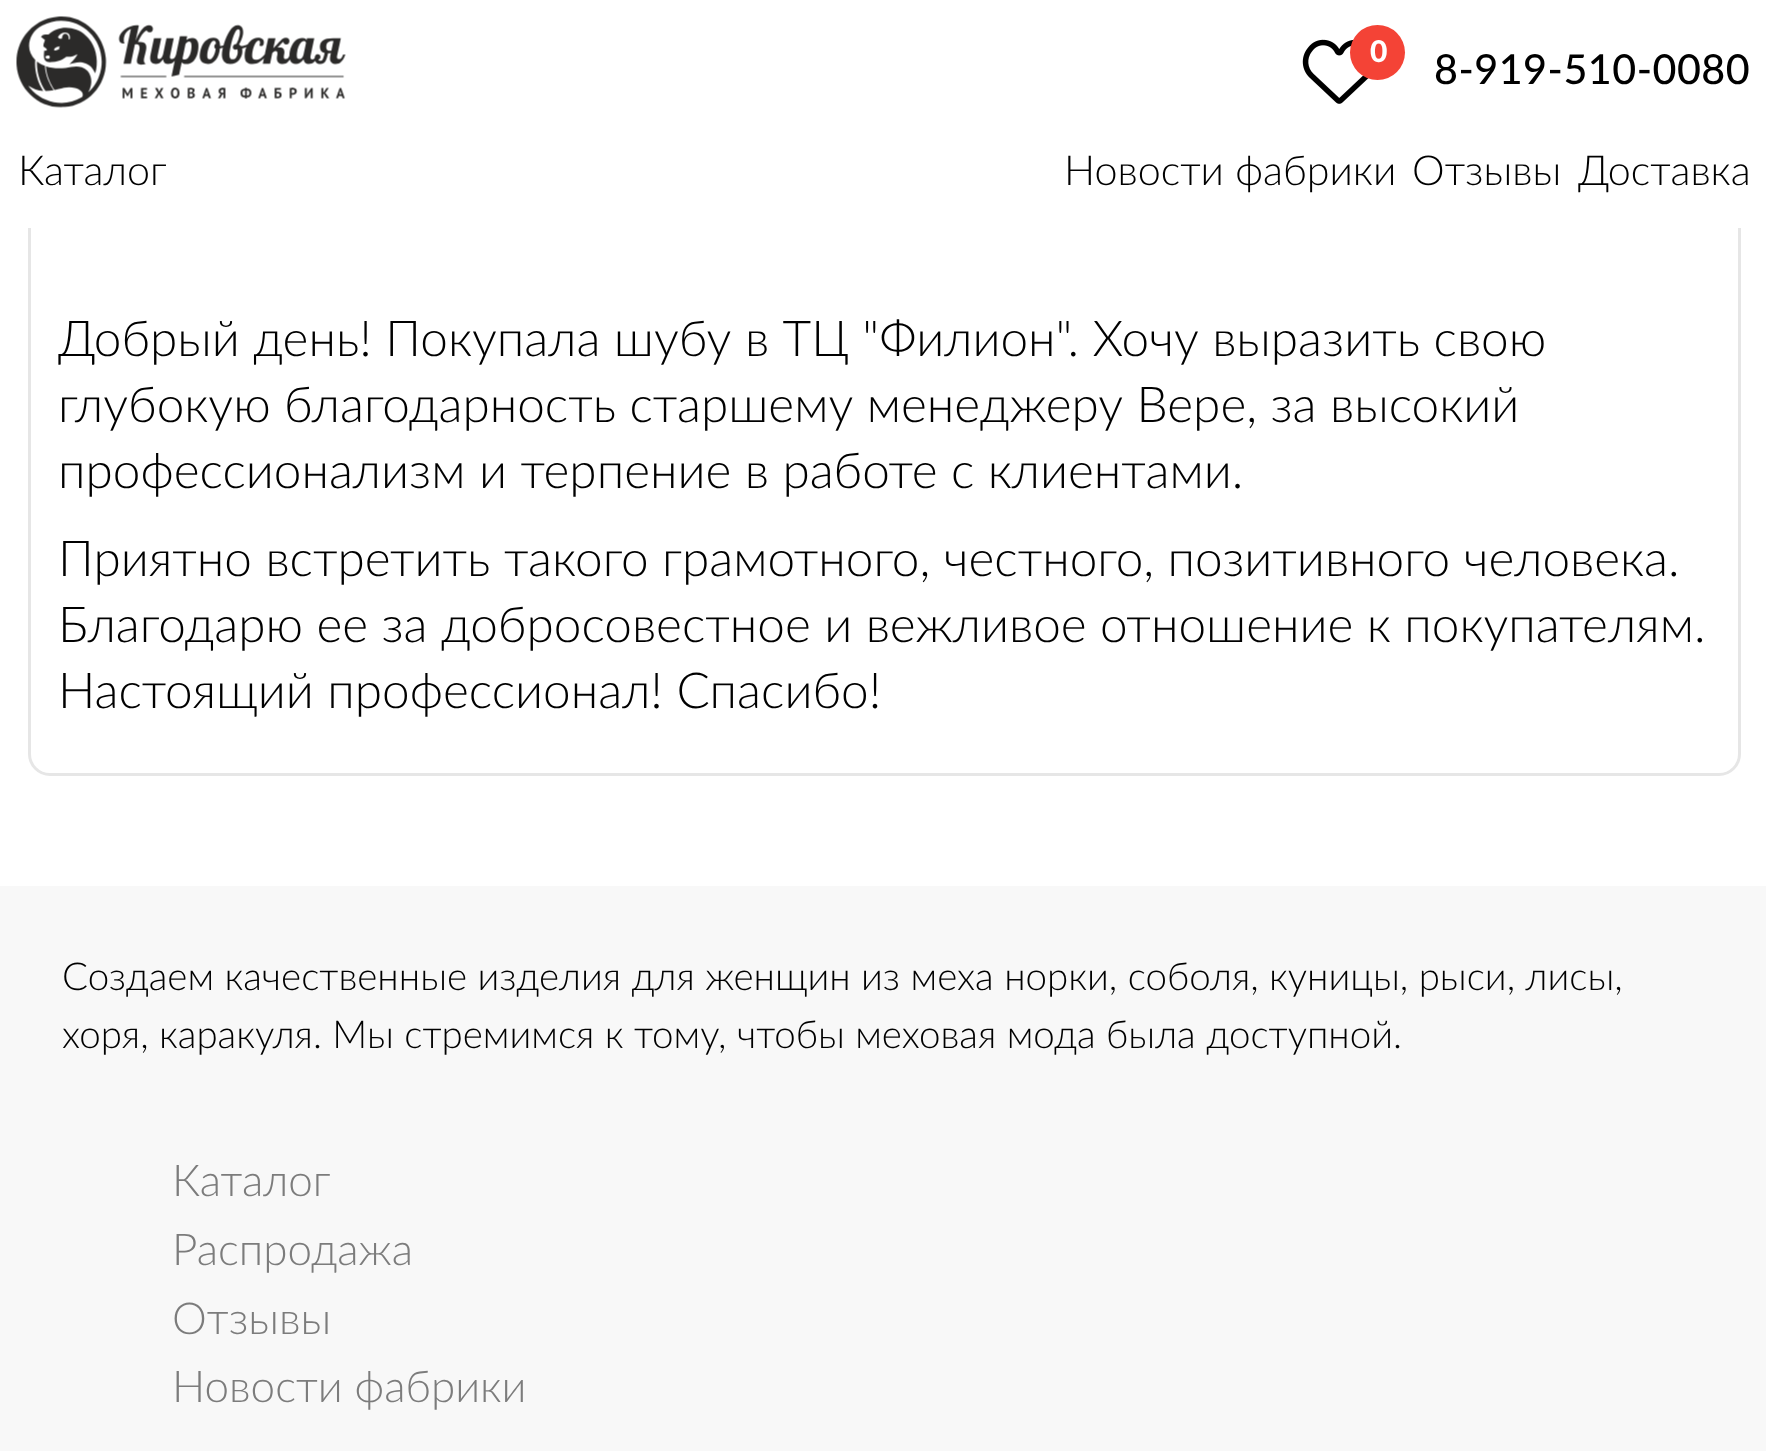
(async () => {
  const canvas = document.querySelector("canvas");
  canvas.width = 1766;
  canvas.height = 1451;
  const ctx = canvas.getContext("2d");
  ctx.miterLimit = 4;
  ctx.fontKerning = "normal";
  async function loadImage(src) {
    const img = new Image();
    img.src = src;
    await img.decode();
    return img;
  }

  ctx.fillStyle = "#ffffff";
  ctx.fillRect(0, 0, 1766, 1451);
  ctx.beginPath();
  ctx.roundRect(29.5, -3.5, 1710, 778, 20.5);
  ctx.strokeStyle = "#e6e6e6";
  ctx.lineWidth = 3;
  ctx.stroke();
  ctx.fillRect(28, 0, 1713, 228);
  ctx.drawImage(await loadImage("img/1.png"), 16, 16, 330, 92);
  ctx.drawImage(await loadImage("img/2.png"), 1302, 39, 67, 65);
  ctx.fillStyle = "#f44336";
  ctx.beginPath();
  ctx.arc(1377.5, 52.5, 27.5, 0, Math.PI * 2);
  ctx.fill();
  ctx.fillStyle = "#f8f8f8";
  ctx.fillRect(0, 886, 1766, 565);
  ctx.font = "800 30px Lato";
  ctx.fillStyle = "#ffffff";
  ctx.fillText("0", 1370, 62);
  ctx.letterSpacing = "0.5px";
  ctx.font = "500 41.25px Lato";
  ctx.fillStyle = "#000000";
  ctx.fillText("8-919-510-0080", 1434, 84);
  ctx.letterSpacing = "0px";
  ctx.font = "300 41.25px Lato";
  for (const [text, x, y] of [
    ["Каталог", 18, 185],
    ["Новости фабрики", 1064, 185],
    ["Отзывы", 1412, 185],
    ["Доставка", 1578, 185],
  ]) {
    ctx.fillText(text, x, y);
  }
  ctx.font = "300 49.5px Lato";
  for (const [text, x, y] of [
    ["Добрый день! Покупала шубу в ТЦ \"Филион\". Хочу выразить свою", 58, 356],
    ["глубокую благодарность старшему менеджеру Вере, за высокий", 58, 422],
    ["профессионализм и терпение в работе с клиентами.", 58, 488],
    ["Приятно встретить такого грамотного, честного, позитивного человека.", 58, 576],
    ["Благодарю ее за добросовестное и вежливое отношение к покупателям.", 58, 642],
    ["Настоящий профессионал! Спасибо!", 58, 708],
  ]) {
    ctx.fillText(text, x, y);
  }
  ctx.font = "300 38.5px Lato";
  ctx.fillText("Создаем качественные изделия для женщин из меха норки, соболя, куницы, рыси, лисы,", 62, 990);
  ctx.fillText("хоря, каракуля. Мы стремимся к тому, чтобы меховая мода была доступной.", 62, 1048);
  ctx.font = "300 44px Lato";
  ctx.fillStyle = "#7c7c7c";
  for (const [text, x, y] of [
    ["Каталог", 172, 1196],
    ["Распродажа", 172, 1265],
    ["Отзывы", 172, 1334],
    ["Новости фабрики", 172, 1402],
  ]) {
    ctx.fillText(text, x, y);
  }
})();
